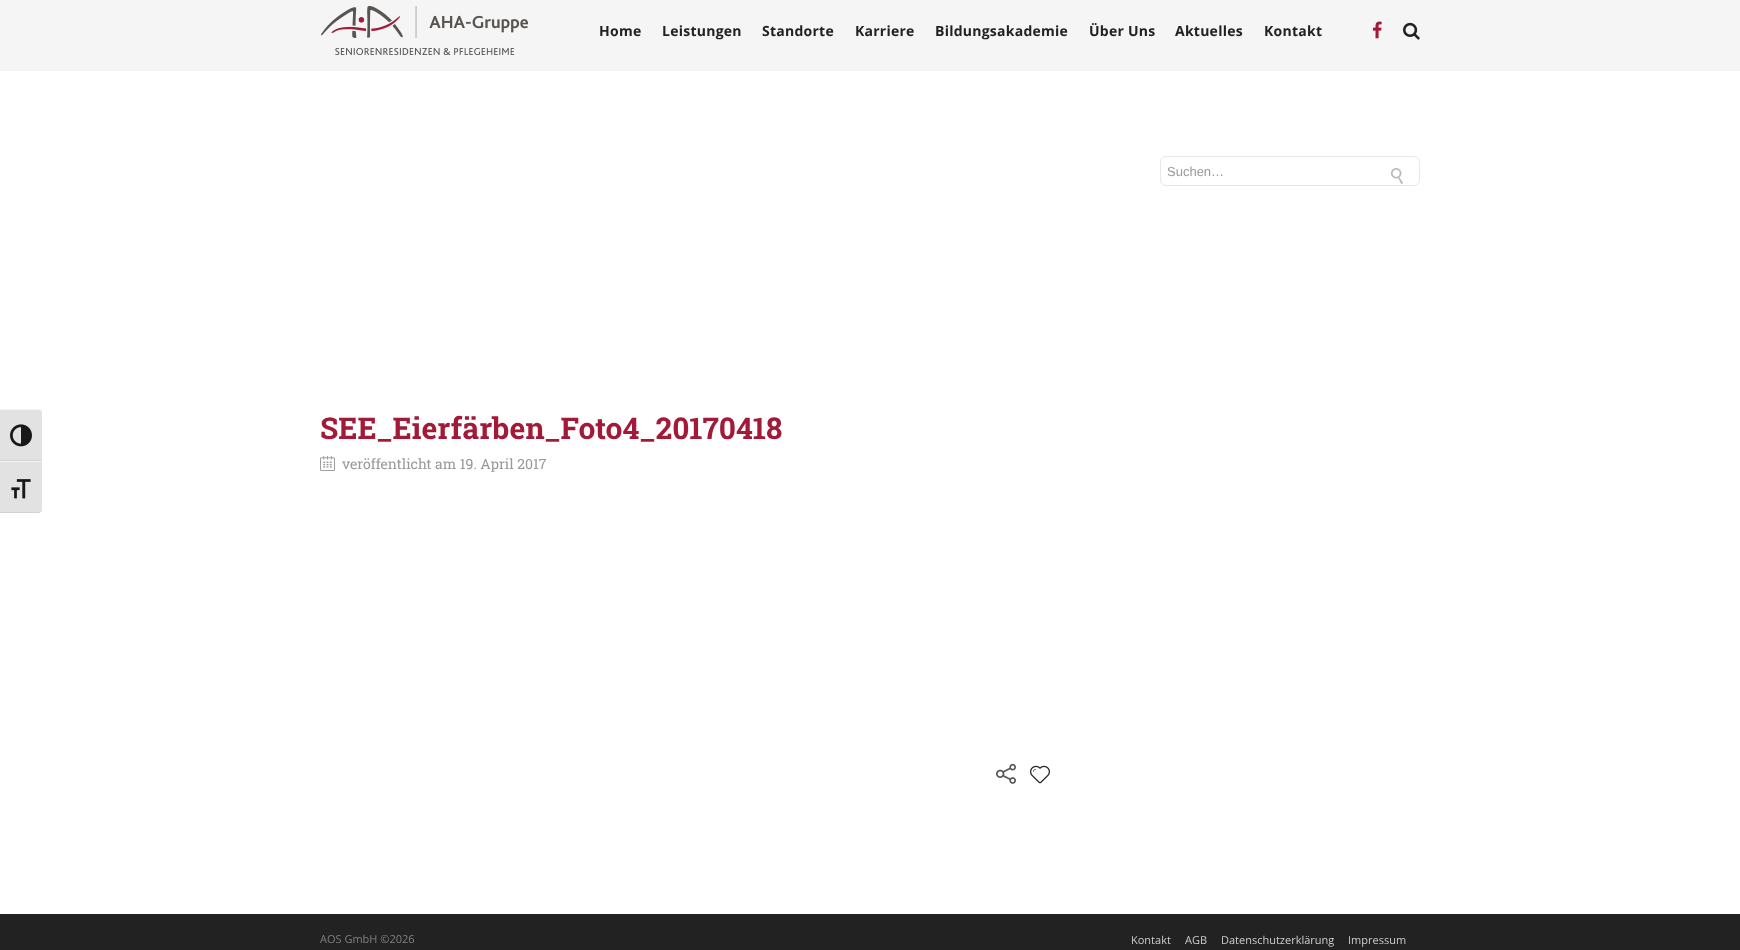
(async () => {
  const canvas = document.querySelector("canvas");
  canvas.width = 1740;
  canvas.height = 950;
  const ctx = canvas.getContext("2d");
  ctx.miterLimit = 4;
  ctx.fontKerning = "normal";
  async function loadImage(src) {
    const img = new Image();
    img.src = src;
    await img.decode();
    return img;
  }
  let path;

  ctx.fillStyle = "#ffffff";
  ctx.fillRect(0, 0, 1740, 950);
  ctx.fillStyle = "#e2e2e2";
  ctx.beginPath();
  ctx.roundRect(0, 409, 42, 52, [0, 4, 0, 0]);
  ctx.fill();
  ctx.fillStyle = "#f5f5f5";
  path = new Path2D("M0 409V410H38C40 410 42 411 42 413C42 411 40 409 38 409Z");
  ctx.fill(path);
  ctx.fillStyle = "#d2d2d2";
  ctx.fillRect(0, 460, 42, 1);
  ctx.drawImage(await loadImage("img/1.png"), 10, 424, 22, 23);
  ctx.fillStyle = "#e2e2e2";
  ctx.beginPath();
  ctx.roundRect(0, 461, 42, 52, [0, 0, 4, 0]);
  ctx.fill();
  ctx.fillStyle = "#f5f5f5";
  ctx.fillRect(0, 461, 42, 1);
  ctx.fillStyle = "#d2d2d2";
  path = new Path2D("M0 512V513H38C40 513 42 511 42 509C42 511 40 512 38 512Z");
  ctx.fill(path);
  ctx.drawImage(await loadImage("img/2.png"), 11, 479, 20, 20);
  ctx.fillStyle = "#f5f5f5";
  ctx.fillRect(0, 0, 1740, 71);
  ctx.drawImage(await loadImage("img/3.png"), 321, 6, 207, 49);
  ctx.drawImage(await loadImage("img/4.png"), 1372, 21, 10, 18);
  ctx.drawImage(await loadImage("img/5.png"), 1403, 22, 17, 18);
  ctx.beginPath();
  ctx.roundRect(1160.5, 156.5, 259, 29, 5.5);
  ctx.strokeStyle = "#e7e7e7";
  ctx.stroke();
  ctx.drawImage(await loadImage("img/6.png"), 1390, 168, 13, 16);
  ctx.drawImage(await loadImage("img/7.png"), 320, 456, 15, 15);
  ctx.drawImage(await loadImage("img/8.png"), 996, 763, 20, 21);
  ctx.drawImage(await loadImage("img/9.png"), 1030, 765, 20, 19);
  ctx.fillStyle = "#222222";
  ctx.fillRect(0, 914, 1740, 36);
  ctx.letterSpacing = "0.25px";
  ctx.font = "bold 14px Open Sans";
  for (const [text, x, y] of [
    ["Home", 599, 36],
    ["Leistungen", 662, 36],
    ["Standorte", 762, 36],
    ["Karriere", 855, 36],
    ["Bildungsakademie", 935, 36],
    ["Über Uns", 1089, 36],
    ["Aktuelles", 1175, 36],
    ["Kontakt", 1264, 36],
  ]) {
    ctx.fillText(text, x, y);
  }
  ctx.letterSpacing = "0px";
  ctx.font = "13px Liberation Sans";
  ctx.fillStyle = "#999999";
  ctx.fillText("Suchen…", 1167, 176);
  ctx.font = "bold 30px Roboto Slab";
  ctx.fillStyle = "#a21a37";
  ctx.fillText("SEE_Eierfärben_Foto4_20170418", 320, 439);
  ctx.font = "14px Roboto Slab";
  ctx.fillStyle = "#999999";
  ctx.fillText("veröffentlicht am 19. April 2017", 342, 469);
  ctx.font = "11px Open Sans";
  ctx.fillStyle = "#818181";
  ctx.fillText("AOS GmbH ©2026", 320, 943);
  ctx.fillStyle = "#cdcdcd";
  for (const [text, x, y] of [
    ["Kontakt", 1131, 944],
    ["AGB", 1185, 944],
    ["Datenschutzerklärung", 1221, 944],
    ["Impressum", 1348, 944],
  ]) {
    ctx.fillText(text, x, y);
  }
})();
